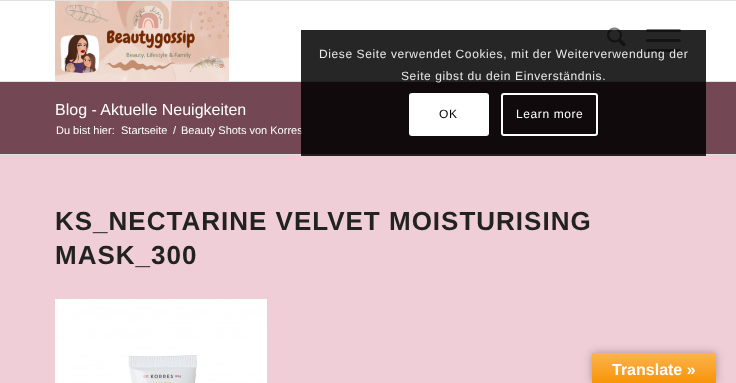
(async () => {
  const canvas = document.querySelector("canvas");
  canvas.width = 736;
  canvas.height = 383;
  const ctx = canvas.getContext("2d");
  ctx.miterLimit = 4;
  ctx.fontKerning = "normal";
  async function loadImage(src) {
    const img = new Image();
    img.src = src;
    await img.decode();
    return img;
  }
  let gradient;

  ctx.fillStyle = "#734854";
  ctx.fillRect(0, 0, 736, 383);
  for (const [x, y, w, h, color] of [
    [0, 0, 736, 1, "#e1e1e1"],
    [0, 81, 736, 1, "#e1e1e1"],
    [0, 1, 736, 80, "#ffffff"],
  ]) {
    ctx.fillStyle = color;
    ctx.fillRect(x, y, w, h);
  }
  ctx.drawImage(await loadImage("img/1.png"), 55, 1, 174, 80);
  ctx.drawImage(await loadImage("img/2.png"), 607, 27, 19, 20);
  ctx.fillStyle = "#808080";
  ctx.beginPath();
  ctx.roundRect(646, 39, 35, 3, 1.5);
  ctx.fill();
  ctx.beginPath();
  ctx.roundRect(646, 29, 35, 3, 1.5);
  ctx.fill();
  ctx.beginPath();
  ctx.roundRect(646, 49, 35, 3, 1.5);
  ctx.fill();
  ctx.fillStyle = "#f0ced8";
  ctx.fillRect(0, 155, 736, 228);
  ctx.fillStyle = "#e1e1e1";
  ctx.fillRect(0, 154, 736, 1);
  ctx.drawImage(await loadImage("img/3.png"), 55, 299, 212, 84);
  ctx.fillStyle = "rgba(0, 0, 0, 0.3)";
  ctx.filter = "blur(4.5px)";
  ctx.beginPath();
  ctx.rect(592, 353, 124, 30);
  ctx.fill();
  ctx.filter = "none";
  gradient = ctx.createLinearGradient(654, 353, 654, 383);
  gradient.addColorStop(0, "#fbb450");
  gradient.addColorStop(1, "#f89406");
  ctx.fillStyle = gradient;
  ctx.fillRect(592, 353, 124, 30);
  ctx.font = "16px Liberation Sans";
  ctx.fillStyle = "#ffffff";
  ctx.fillText("Blog - Aktuelle Neuigkeiten", 55, 115);
  ctx.font = "11px Liberation Sans";
  for (const [text, x, y] of [
    ["Du bist hier:", 56, 134],
    ["Startseite", 121, 134],
    ["/", 173, 134],
    ["Beauty Shots von Korres", 181, 134],
  ]) {
    ctx.fillText(text, x, y);
  }
  ctx.fillStyle = "rgba(0, 0, 0, 0.85)";
  ctx.fillRect(301, 30, 405, 126);
  ctx.beginPath();
  ctx.roundRect(502, 94, 95, 41, 2);
  ctx.strokeStyle = "#ffffff";
  ctx.lineWidth = 2;
  ctx.stroke();
  ctx.letterSpacing = "0.6px";
  ctx.font = "12px Liberation Sans";
  ctx.fillStyle = "#ffffff";
  ctx.fillText("Learn more", 516, 118);
  ctx.beginPath();
  ctx.roundRect(409, 93, 80, 43, 3);
  ctx.fill();
  ctx.fillStyle = "#000000";
  ctx.fillText("OK", 439, 118);
  ctx.fillStyle = "#e9e9e9";
  ctx.fillText("Seite gibst du dein Einverständnis.", 401, 80);
  ctx.fillText("Diese Seite verwendet Cookies, mit der Weiterverwendung der", 319, 58);
  ctx.letterSpacing = "1px";
  ctx.font = "bold 26px Liberation Sans";
  ctx.fillStyle = "#222222";
  ctx.fillText("KS_NECTARINE VELVET MOISTURISING", 55, 230);
  ctx.fillText("MASK_300", 55, 264);
  ctx.letterSpacing = "0px";
  ctx.font = "bold 16px Liberation Sans";
  ctx.fillStyle = "#ffffff";
  ctx.fillText("Translate »", 612, 375);
})();
